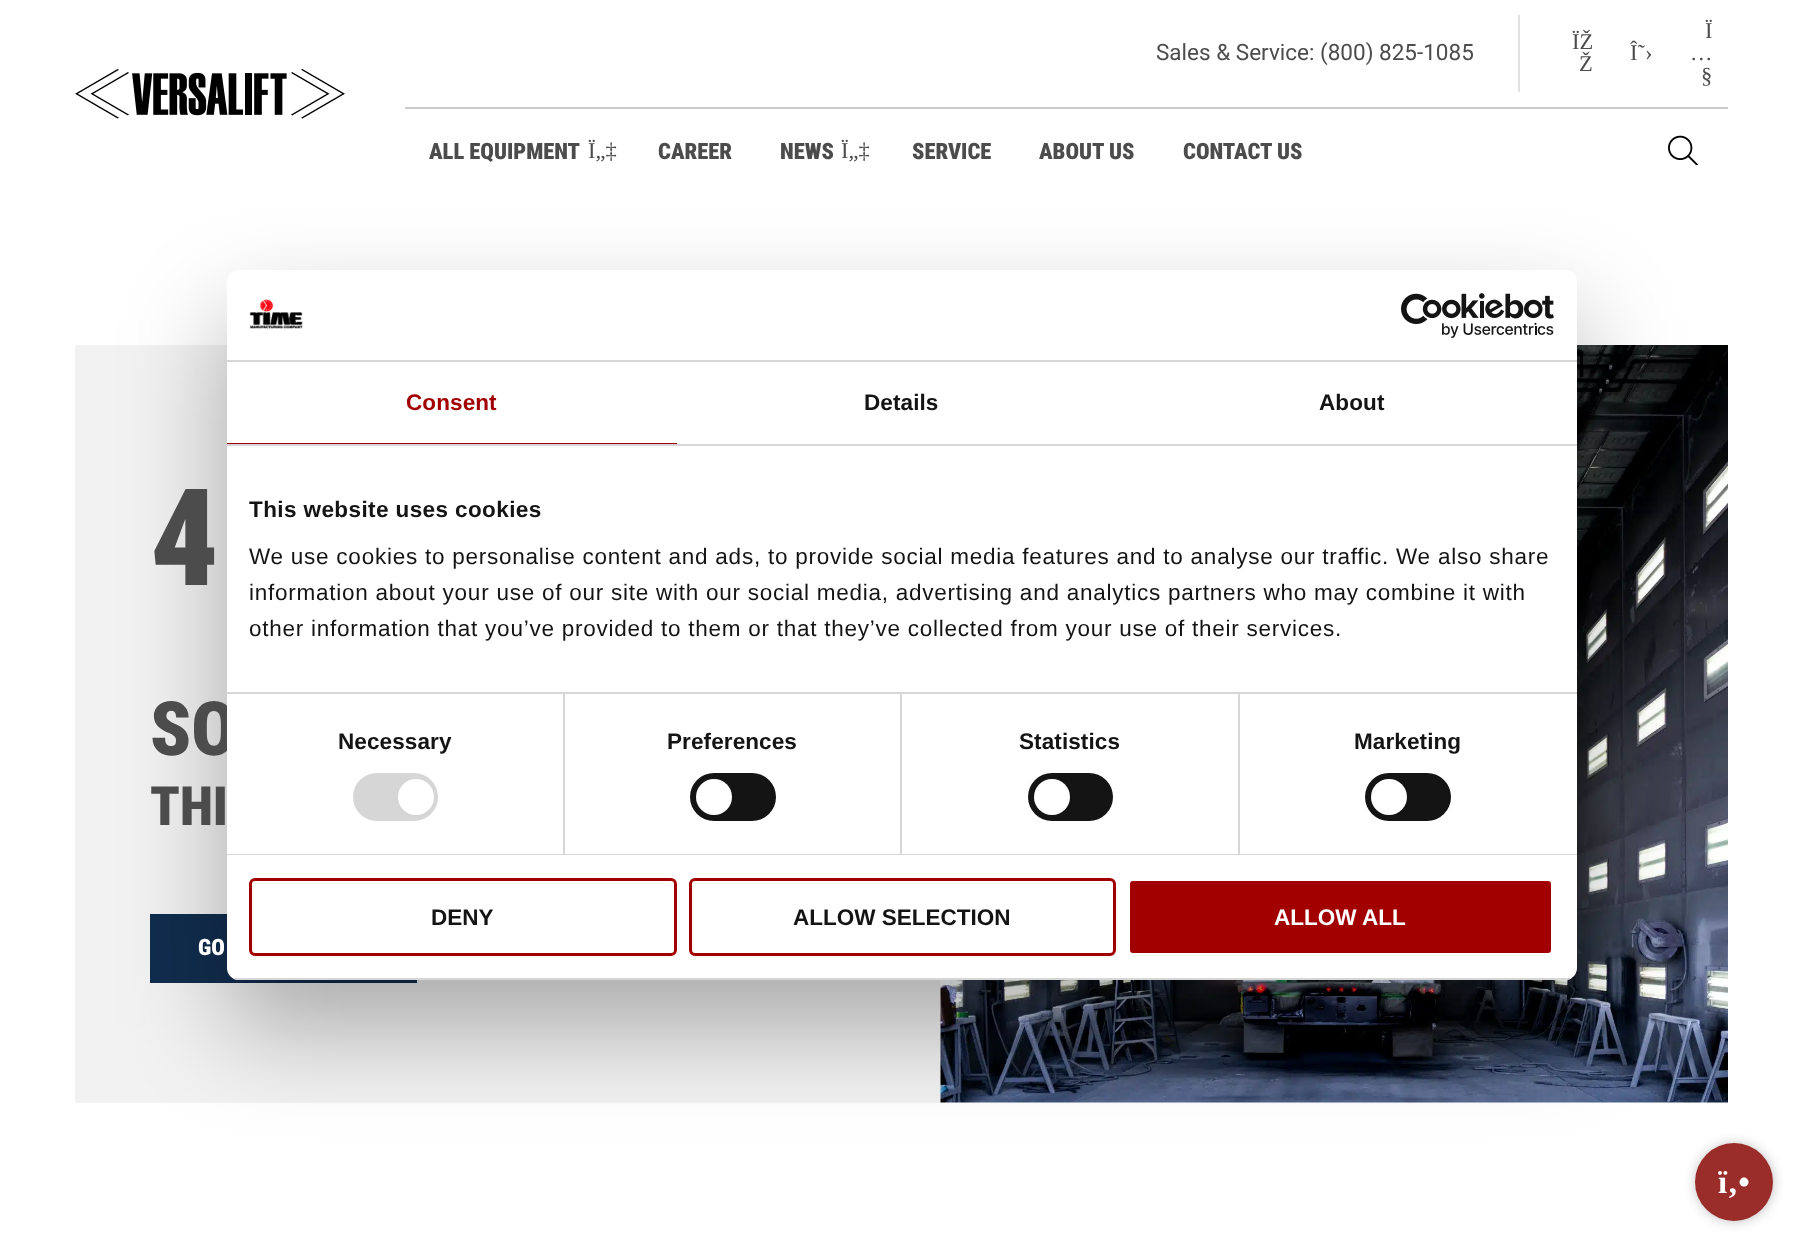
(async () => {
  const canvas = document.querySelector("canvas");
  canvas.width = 1802;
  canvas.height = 1250;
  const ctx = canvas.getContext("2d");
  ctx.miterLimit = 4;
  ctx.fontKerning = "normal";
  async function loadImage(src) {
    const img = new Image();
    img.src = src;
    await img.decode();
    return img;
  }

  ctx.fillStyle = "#ffffff";
  ctx.fillRect(0, 0, 1802, 1250);
  ctx.drawImage(await loadImage("img/1.png"), 75, 69, 270, 50);
  ctx.fillStyle = "#e1e1e1";
  ctx.fillRect(1518, 15, 2, 77);
  ctx.fillStyle = "#cacaca";
  ctx.fillRect(405, 107, 1323, 2);
  ctx.drawImage(await loadImage("img/2.png"), 1668, 135, 30, 30);
  ctx.fillStyle = "#f2f2f2";
  ctx.fillRect(75, 345, 866, 758);
  ctx.fillStyle = "#112d4e";
  ctx.fillRect(150, 914, 267, 69);
  ctx.drawImage(await loadImage("img/3.png"), 940, 345, 788, 758);
  ctx.fillStyle = "rgba(0, 0, 0, 0.5)";
  ctx.filter = "blur(7.5px)";
  ctx.beginPath();
  ctx.roundRect(1700, 1148, 69, 69, 34.5);
  ctx.fill();
  ctx.filter = "none";
  ctx.fillStyle = "#9a2c29";
  ctx.beginPath();
  ctx.arc(1734, 1182, 39, 0, Math.PI * 2);
  ctx.fill();
  ctx.fillStyle = "rgba(0, 0, 0, 0.3)";
  ctx.filter = "blur(51px)";
  ctx.beginPath();
  ctx.roundRect(227, 318, 1350, 710, 12);
  ctx.fill();
  ctx.filter = "none";
  ctx.font = "22.5px Roboto";
  ctx.fillStyle = "#4c4c4c";
  ctx.fillText("Sales & Service: (800) 825-1085", 1156, 60);
  ctx.font = "22.5px Liberation Serif";
  for (const [text, x, y] of [
    ["ÏŽ", 1572, 49],
    ["Ž", 1579, 71],
    ["Î˜›", 1630, 60],
    ["Ï", 1705, 38],
    ["…", 1690, 60],
    ["§", 1701, 83],
  ]) {
    ctx.fillText(text, x, y);
  }
  ctx.font = "900 22.5px Roboto Condensed";
  ctx.fillText("ALL EQUIPMENT", 429, 159);
  ctx.font = "22.5px Liberation Serif";
  ctx.fillText("Ï„‡", 588, 158);
  ctx.font = "900 22.5px Roboto Condensed";
  ctx.fillText("CAREER", 658, 159);
  ctx.fillText("NEWS", 780, 159);
  ctx.font = "22.5px Liberation Serif";
  ctx.fillText("Ï„‡", 841, 158);
  ctx.font = "900 22.5px Roboto Condensed";
  for (const [text, x, y] of [
    ["SERVICE", 912, 159],
    ["ABOUT US", 1039, 159],
    ["CONTACT US", 1183, 159],
  ]) {
    ctx.fillText(text, x, y);
  }
  ctx.font = "900 135px Roboto Condensed";
  ctx.fillText("4", 150, 585);
  ctx.font = "900 75px Roboto Condensed";
  ctx.fillText("SO", 150, 755);
  ctx.font = "900 54px Roboto Condensed";
  ctx.fillText("THI", 150, 825);
  ctx.font = "900 22.5px Roboto Condensed";
  ctx.fillStyle = "#ffffff";
  ctx.fillText("GO", 198, 955);
  ctx.beginPath();
  ctx.roundRect(227, 270, 1350, 710, 12);
  ctx.fill();
  ctx.fillStyle = "#d6d6d6";
  ctx.fillRect(227, 360, 1350, 2);
  ctx.drawImage(await loadImage("img/4.png"), 249, 299, 54, 30);
  ctx.drawImage(await loadImage("img/5.png"), 1401, 293, 153, 45);
  ctx.fillRect(227, 444, 1350, 2);
  ctx.fillStyle = "#a20000";
  ctx.fillRect(227, 443, 450, 1);
  ctx.letterSpacing = "0.1px";
  ctx.font = "bold 22.5px Liberation Sans";
  ctx.fillText("Consent", 406, 410);
  ctx.fillStyle = "#141414";
  ctx.fillText("Details", 864, 410);
  ctx.fillText("About", 1319, 410);
  ctx.letterSpacing = "0.4px";
  ctx.fillText("This website uses cookies", 249, 517);
  ctx.letterSpacing = "0.75px";
  ctx.font = "22.5px Liberation Sans";
  for (const [text, x, y] of [
    ["We use cookies to personalise content and ads, to provide social media features and to analyse our traffic. We also share", 249, 564],
    ["information about your use of our site with our social media, advertising and analytics partners who may combine it with", 249, 600],
    ["other information that you’ve provided to them or that they’ve collected from your use of their services.", 249, 636],
  ]) {
    ctx.fillText(text, x, y);
  }
  ctx.fillStyle = "#d6d6d6";
  ctx.fillRect(227, 854, 1350, 1);
  ctx.fillRect(563, 693, 2, 161);
  ctx.letterSpacing = "0.1px";
  ctx.font = "bold 22.5px Liberation Sans";
  ctx.fillStyle = "#141414";
  ctx.fillText("Necessary", 338, 749);
  ctx.fillStyle = "#d6d6d6";
  ctx.beginPath();
  ctx.roundRect(353, 773, 85, 48, 24);
  ctx.fill();
  ctx.fillStyle = "#ffffff";
  ctx.beginPath();
  ctx.arc(416, 797, 18, 0, Math.PI * 2);
  ctx.fill();
  ctx.fillStyle = "#d6d6d6";
  ctx.fillRect(900, 693, 2, 161);
  ctx.fillStyle = "#141414";
  ctx.fillText("Preferences", 667, 749);
  ctx.beginPath();
  ctx.roundRect(690, 773, 86, 48, 24);
  ctx.fill();
  ctx.fillStyle = "#ffffff";
  ctx.beginPath();
  ctx.arc(714, 797, 18, 0, Math.PI * 2);
  ctx.fill();
  ctx.fillStyle = "#d6d6d6";
  ctx.fillRect(1238, 693, 2, 161);
  ctx.fillRect(227, 692, 1350, 2);
  ctx.fillStyle = "#141414";
  ctx.fillText("Statistics", 1019, 749);
  ctx.beginPath();
  ctx.roundRect(1028, 773, 85, 48, 24);
  ctx.fill();
  ctx.fillStyle = "#ffffff";
  ctx.beginPath();
  ctx.arc(1052, 797, 18, 0, Math.PI * 2);
  ctx.fill();
  ctx.fillStyle = "#141414";
  ctx.fillText("Marketing", 1354, 749);
  ctx.beginPath();
  ctx.roundRect(1365, 773, 86, 48, 24);
  ctx.fill();
  ctx.fillStyle = "#ffffff";
  ctx.beginPath();
  ctx.arc(1389, 797, 18, 0, Math.PI * 2);
  ctx.fill();
  ctx.save();
  ctx.beginPath();
  ctx.roundRect(227, 270, 1350, 710, 12);
  ctx.clip();
  ctx.fillStyle = "#d6d6d6";
  ctx.fillRect(227, 978, 1350, 2);
  ctx.restore();
  ctx.beginPath();
  ctx.roundRect(250.5, 879.5, 425, 75, 4.5);
  ctx.strokeStyle = "#a20000";
  ctx.lineWidth = 3;
  ctx.stroke();
  ctx.letterSpacing = "0px";
  ctx.fillStyle = "#141414";
  ctx.fillText("DENY", 431, 925);
  ctx.beginPath();
  ctx.roundRect(690.5, 879.5, 424, 75, 4.5);
  ctx.stroke();
  ctx.fillText("ALLOW SELECTION", 793, 925);
  ctx.fillStyle = "#a20000";
  ctx.beginPath();
  ctx.roundRect(1128.5, 879.5, 424, 75, 4.5);
  ctx.fill();
  ctx.strokeStyle = "#ffffff";
  ctx.stroke();
  ctx.fillStyle = "#ffffff";
  ctx.fillText("ALLOW ALL", 1274, 925);
  ctx.font = "bold 33px Liberation Serif";
  ctx.fillText("ï‚•", 1718, 1193);
})();
